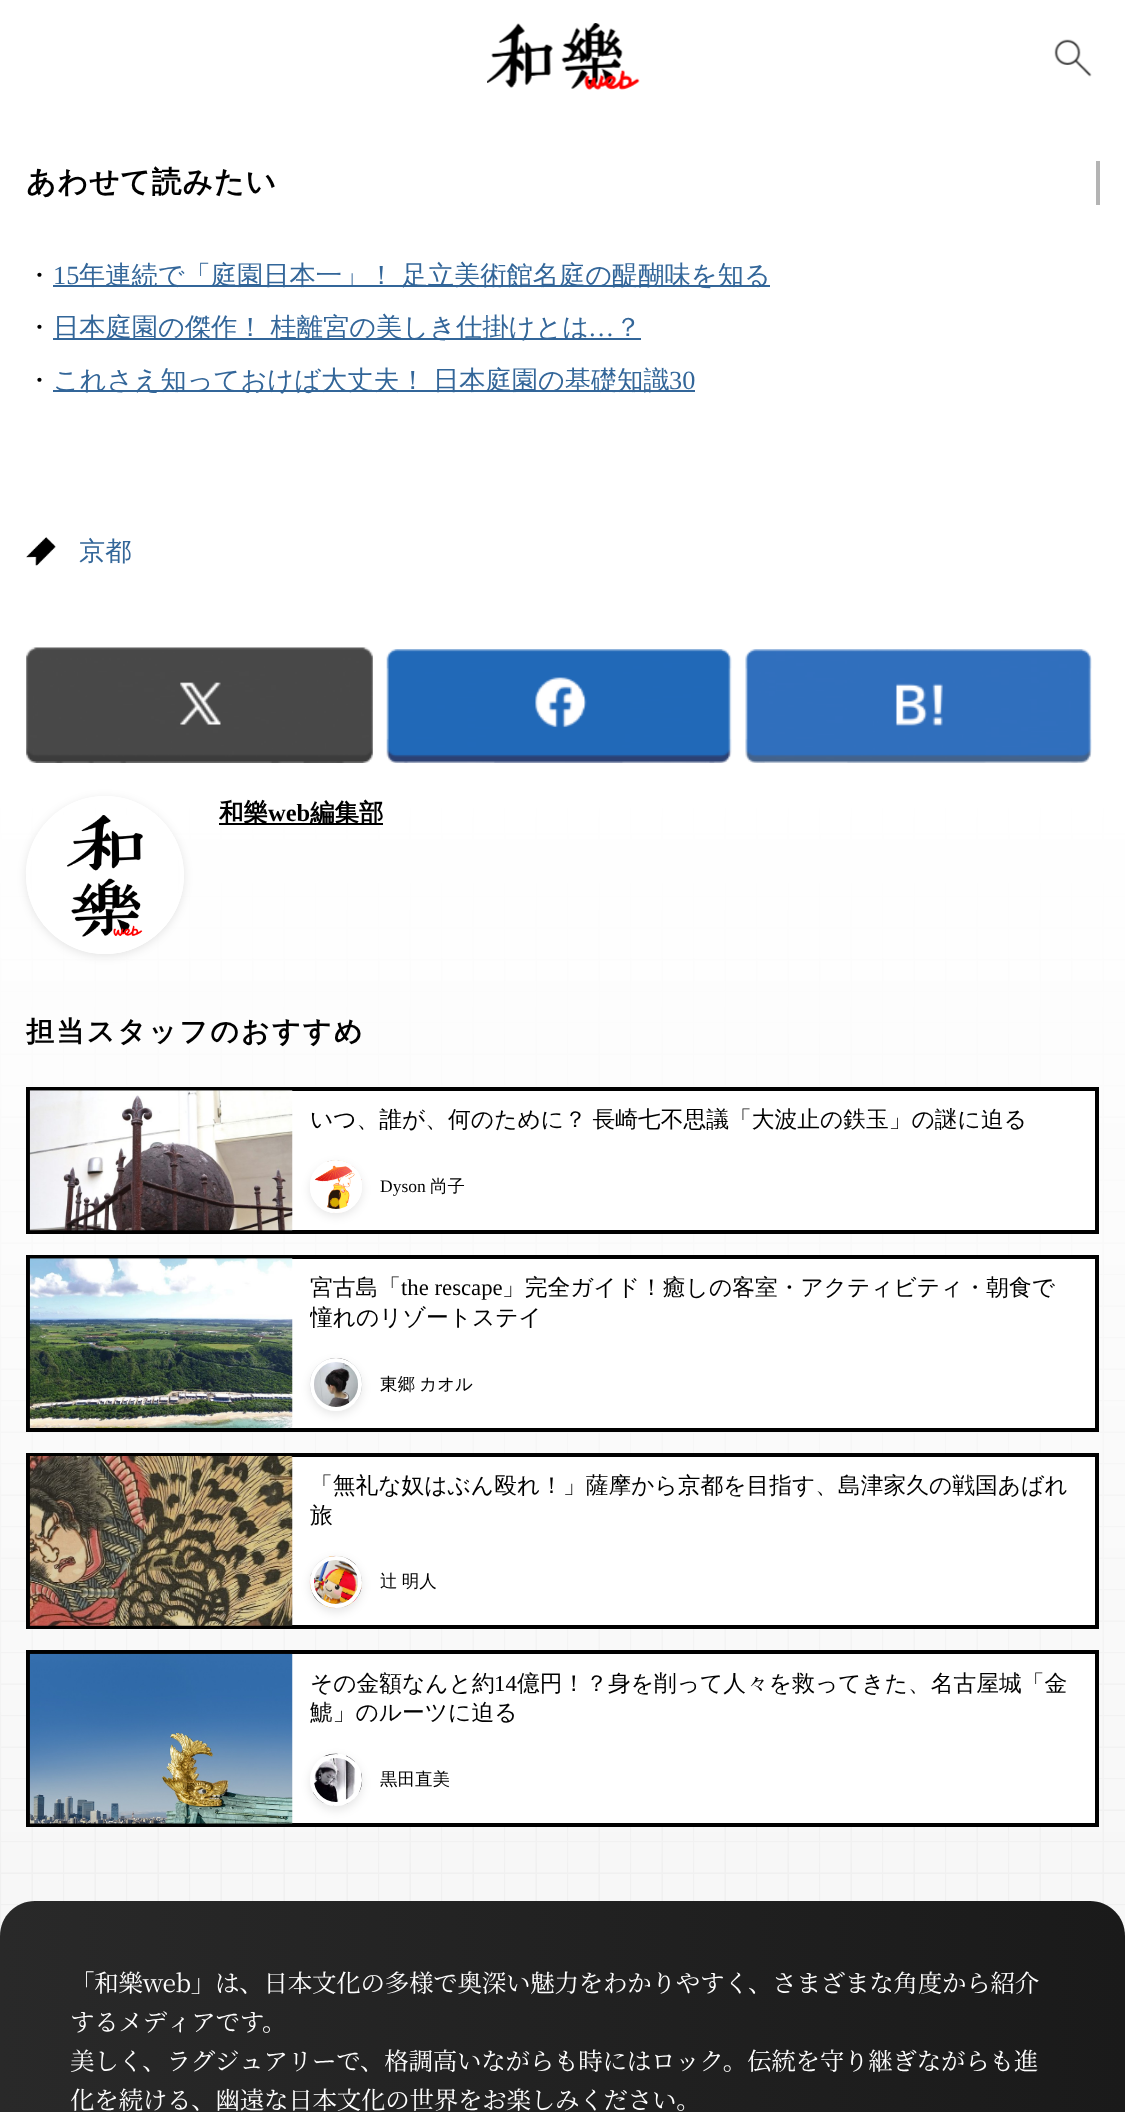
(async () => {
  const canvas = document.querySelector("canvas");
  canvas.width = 1125;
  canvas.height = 2112;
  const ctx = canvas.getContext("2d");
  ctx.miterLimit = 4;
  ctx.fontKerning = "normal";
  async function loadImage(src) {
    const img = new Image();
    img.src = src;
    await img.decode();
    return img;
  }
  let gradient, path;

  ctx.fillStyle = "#ffffff";
  ctx.fillRect(0, 0, 1125, 2112);
  ctx.drawImage(await loadImage("img/1.png"), 0, 770, 1125, 1166);
  ctx.drawImage(await loadImage("img/2.png"), 487, 23, 153, 67);
  ctx.drawImage(await loadImage("img/3.png"), 1054, 39, 38, 38);
  for (const [x, y, w, h, color] of [
    [1096, 161, 4, 44, "#b4b4b4"],
    [53, 285, 717, 2, "#336699"],
    [53, 338, 588, 2, "#336699"],
    [53, 390, 642, 2, "#336699"],
  ]) {
    ctx.fillStyle = color;
    ctx.fillRect(x, y, w, h);
  }
  ctx.drawImage(await loadImage("img/4.png"), 26, 537, 30, 29);
  ctx.drawImage(await loadImage("img/5.png"), 26, 647, 347, 116);
  ctx.drawImage(await loadImage("img/6.png"), 386, 649, 346, 114);
  ctx.drawImage(await loadImage("img/7.png"), 745, 649, 347, 114);
  ctx.save();
  path = new Path2D("M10 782H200V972H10ZM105 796C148.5 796 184 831.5 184 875C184 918.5 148.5 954 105 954C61.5 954 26 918.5 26 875C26 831.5 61.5 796 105 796Z");
  ctx.clip(path, "evenodd");
  ctx.fillStyle = "rgba(0, 0, 0, 0.1)";
  ctx.filter = "blur(5px)";
  ctx.beginPath();
  ctx.roundRect(26, 798, 158, 158, 79);
  ctx.fill();
  ctx.filter = "none";
  ctx.restore();
  ctx.drawImage(await loadImage("img/8.png"), 32, 815, 146, 139);
  ctx.beginPath();
  ctx.arc(105, 875, 77, 0, Math.PI * 2);
  ctx.strokeStyle = "#ffffff";
  ctx.lineWidth = 4;
  ctx.stroke();
  ctx.fillStyle = "#000000";
  ctx.fillRect(219, 823, 164, 2);
  ctx.fillStyle = "#ffffff";
  ctx.fillRect(292, 1091, 803, 139);
  ctx.strokeStyle = "#000000";
  ctx.strokeRect(28, 1089, 1069, 143);
  ctx.drawImage(await loadImage("img/9.png"), 29, 1090, 264, 141);
  ctx.save();
  path = new Path2D("M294 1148H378V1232H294ZM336 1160C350.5 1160 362 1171.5 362 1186V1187C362 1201.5 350.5 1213 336 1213C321.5 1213 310 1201.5 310 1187V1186C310 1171.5 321.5 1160 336 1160Z");
  ctx.clip(path, "evenodd");
  ctx.fillStyle = "rgba(0, 0, 0, 0.1)";
  ctx.filter = "blur(5px)";
  ctx.beginPath();
  ctx.roundRect(310, 1164, 52, 52, 26);
  ctx.fill();
  ctx.filter = "none";
  ctx.restore();
  ctx.drawImage(await loadImage("img/10.png"), 314, 1160, 48, 53);
  ctx.beginPath();
  ctx.roundRect(312, 1162, 48, 49, 24);
  ctx.strokeStyle = "#ffffff";
  ctx.stroke();
  ctx.fillRect(292, 1259, 803, 169);
  ctx.strokeStyle = "#000000";
  ctx.strokeRect(28, 1257, 1069, 173);
  ctx.drawImage(await loadImage("img/11.png"), 29, 1258, 264, 170);
  ctx.fillStyle = "rgba(0, 0, 0, 0.1)";
  ctx.filter = "blur(5px)";
  ctx.beginPath();
  ctx.roundRect(310, 1362, 52, 52, 26);
  ctx.fill();
  ctx.filter = "none";
  ctx.drawImage(await loadImage("img/12.png"), 309, 1358, 54, 53);
  ctx.beginPath();
  ctx.roundRect(312, 1360, 48, 49, 24);
  ctx.strokeStyle = "#ffffff";
  ctx.stroke();
  ctx.fillStyle = "#ffffff";
  ctx.fillRect(292, 1457, 803, 168);
  ctx.strokeStyle = "#000000";
  ctx.strokeRect(28, 1455, 1069, 172);
  ctx.drawImage(await loadImage("img/13.png"), 29, 1456, 264, 170);
  ctx.fillStyle = "rgba(0, 0, 0, 0.1)";
  ctx.filter = "blur(5px)";
  ctx.beginPath();
  ctx.roundRect(310, 1559, 52, 53, 26);
  ctx.fill();
  ctx.filter = "none";
  ctx.drawImage(await loadImage("img/14.png"), 309, 1555, 54, 54);
  ctx.beginPath();
  ctx.arc(336, 1582, 24, 0, Math.PI * 2);
  ctx.strokeStyle = "#ffffff";
  ctx.stroke();
  ctx.fillStyle = "#ffffff";
  ctx.fillRect(292, 1654, 803, 169);
  ctx.strokeStyle = "#000000";
  ctx.strokeRect(28, 1652, 1069, 173);
  ctx.drawImage(await loadImage("img/15.png"), 29, 1653, 264, 171);
  ctx.fillStyle = "rgba(0, 0, 0, 0.1)";
  ctx.filter = "blur(5px)";
  ctx.beginPath();
  ctx.roundRect(310, 1757, 52, 53, 26);
  ctx.fill();
  ctx.filter = "none";
  ctx.drawImage(await loadImage("img/16.png"), 313, 1753, 50, 53);
  ctx.beginPath();
  ctx.arc(336, 1780, 24, 0, Math.PI * 2);
  ctx.strokeStyle = "#ffffff";
  ctx.stroke();
  gradient = ctx.createLinearGradient(0, 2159, 1125, 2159);
  gradient.addColorStop(0, "#292929");
  gradient.addColorStop(1, "#1a1a1a");
  ctx.fillStyle = gradient;
  path = new Path2D("M35 1901H1090C1109.5 1901 1125 1916.5 1125 1936V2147H0V1936C0 1916.5 15.5 1901 35 1901Z");
  ctx.fill(path);
  ctx.letterSpacing = "1px";
  ctx.font = "bold 29.75px WenQuanYi Zen Hei";
  ctx.fillStyle = "#000000";
  ctx.fillText("あわせて読みたい", 26, 192);
  ctx.letterSpacing = "0px";
  ctx.font = "500 26.25px WenQuanYi Zen Hei";
  ctx.fillText("・", 26, 284);
  ctx.font = "26.25px Liberation Serif";
  ctx.fillStyle = "#336699";
  ctx.fillText("15", 53, 284);
  ctx.wordSpacing = "-1px";
  ctx.font = "500 26.25px WenQuanYi Zen Hei";
  ctx.fillText("年連続で「庭園日本一」！ 足立美術館名庭の醍醐味を知る", 79, 284);
  ctx.wordSpacing = "0px";
  ctx.fillStyle = "#000000";
  ctx.fillText("・", 26, 336);
  ctx.wordSpacing = "-1px";
  ctx.fillStyle = "#336699";
  ctx.fillText("日本庭園の傑作！ 桂離宮の美しき仕掛けとは", 53, 336);
  ctx.wordSpacing = "0px";
  ctx.fillText("？", 615, 336);
  ctx.font = "26.25px Liberation Serif";
  ctx.fillText("…", 588, 336);
  ctx.font = "500 26.25px WenQuanYi Zen Hei";
  ctx.fillStyle = "#000000";
  ctx.fillText("・", 26, 389);
  ctx.wordSpacing = "-1px";
  ctx.fillStyle = "#336699";
  ctx.fillText("これさえ知っておけば大丈夫！ 日本庭園の基礎知識", 53, 389);
  ctx.wordSpacing = "0px";
  ctx.font = "26.25px Liberation Serif";
  ctx.fillText("30", 669, 389);
  ctx.font = "500 26.25px WenQuanYi Zen Hei";
  ctx.fillText("京都", 79, 560);
  ctx.font = "bold 24.5px WenQuanYi Zen Hei";
  ctx.fillStyle = "#000000";
  ctx.fillText("和樂", 219, 821);
  ctx.font = "bold 24.5px Liberation Serif";
  ctx.fillText("web", 268, 821);
  ctx.font = "bold 24.5px WenQuanYi Zen Hei";
  ctx.fillText("編集部", 310, 821);
  ctx.letterSpacing = "2.25px";
  ctx.font = "bold 28px WenQuanYi Zen Hei";
  ctx.fillText("担当スタッフのおすすめ", 26, 1041);
  ctx.letterSpacing = "0px";
  ctx.wordSpacing = "-1px";
  ctx.font = "500 22.75px WenQuanYi Zen Hei";
  ctx.fillText("いつ、誰が、何のために？ 長崎七不思議「大波止の鉄玉」の謎に迫る", 310, 1127);
  ctx.wordSpacing = "0px";
  ctx.font = "17.5px Liberation Serif";
  ctx.fillText("Dyson", 380, 1192);
  ctx.font = "500 17.5px WenQuanYi Zen Hei";
  ctx.fillText("尚子", 430, 1192);
  ctx.font = "500 22.75px WenQuanYi Zen Hei";
  ctx.fillText("宮古島「", 310, 1295);
  ctx.font = "22.75px Liberation Serif";
  ctx.fillText("the rescape", 401, 1295);
  ctx.font = "500 22.75px WenQuanYi Zen Hei";
  ctx.fillText("」完全ガイド！癒しの客室・アクティビティ・朝食で", 502, 1295);
  ctx.save();
  ctx.beginPath();
  ctx.rect(310, 1272, 768, 60);
  ctx.clip();
  ctx.fillText("憧れのリゾートステイ", 310, 1325);
  ctx.restore();
  ctx.wordSpacing = "-1px";
  ctx.font = "500 17.5px WenQuanYi Zen Hei";
  ctx.fillText("東郷 カオル", 380, 1390);
  ctx.wordSpacing = "0px";
  ctx.font = "500 22.75px WenQuanYi Zen Hei";
  ctx.fillText("「無礼な奴はぶん殴れ！」薩摩から京都を目指す、島津家久の戦国あばれ", 310, 1493);
  ctx.fillText("旅", 310, 1523);
  ctx.wordSpacing = "-1px";
  ctx.font = "500 17.5px WenQuanYi Zen Hei";
  ctx.fillText("辻 明人", 380, 1587);
  ctx.wordSpacing = "0px";
  ctx.font = "500 22.75px WenQuanYi Zen Hei";
  ctx.fillText("その金額なんと約", 310, 1691);
  ctx.font = "22.75px Liberation Serif";
  ctx.fillText("14", 494, 1691);
  ctx.font = "500 22.75px WenQuanYi Zen Hei";
  ctx.fillText("億円！？身を削って人々を救ってきた、名古屋城「金", 517, 1691);
  ctx.fillText("鯱」のルーツに迫る", 310, 1720);
  ctx.font = "500 17.5px WenQuanYi Zen Hei";
  ctx.fillText("黒田直美", 380, 1785);
  ctx.letterSpacing = "-0.25px";
  ctx.font = "24.5px Noto Serif JP";
  ctx.fillStyle = "#ffffff";
  for (const [text, x, y] of [
    ["「和樂web」は、日本文化の多様で奥深い魅力をわかりやすく、さまざまな角度から紹介", 70, 1992],
    ["するメディアです。", 70, 2031],
    ["美しく、ラグジュアリーで、格調高いながらも時にはロック。伝統を守り継ぎながらも進", 70, 2070],
    ["化を続ける、幽遠な日本文化の世界をお楽しみください。", 70, 2109],
  ]) {
    ctx.fillText(text, x, y);
  }
})();
